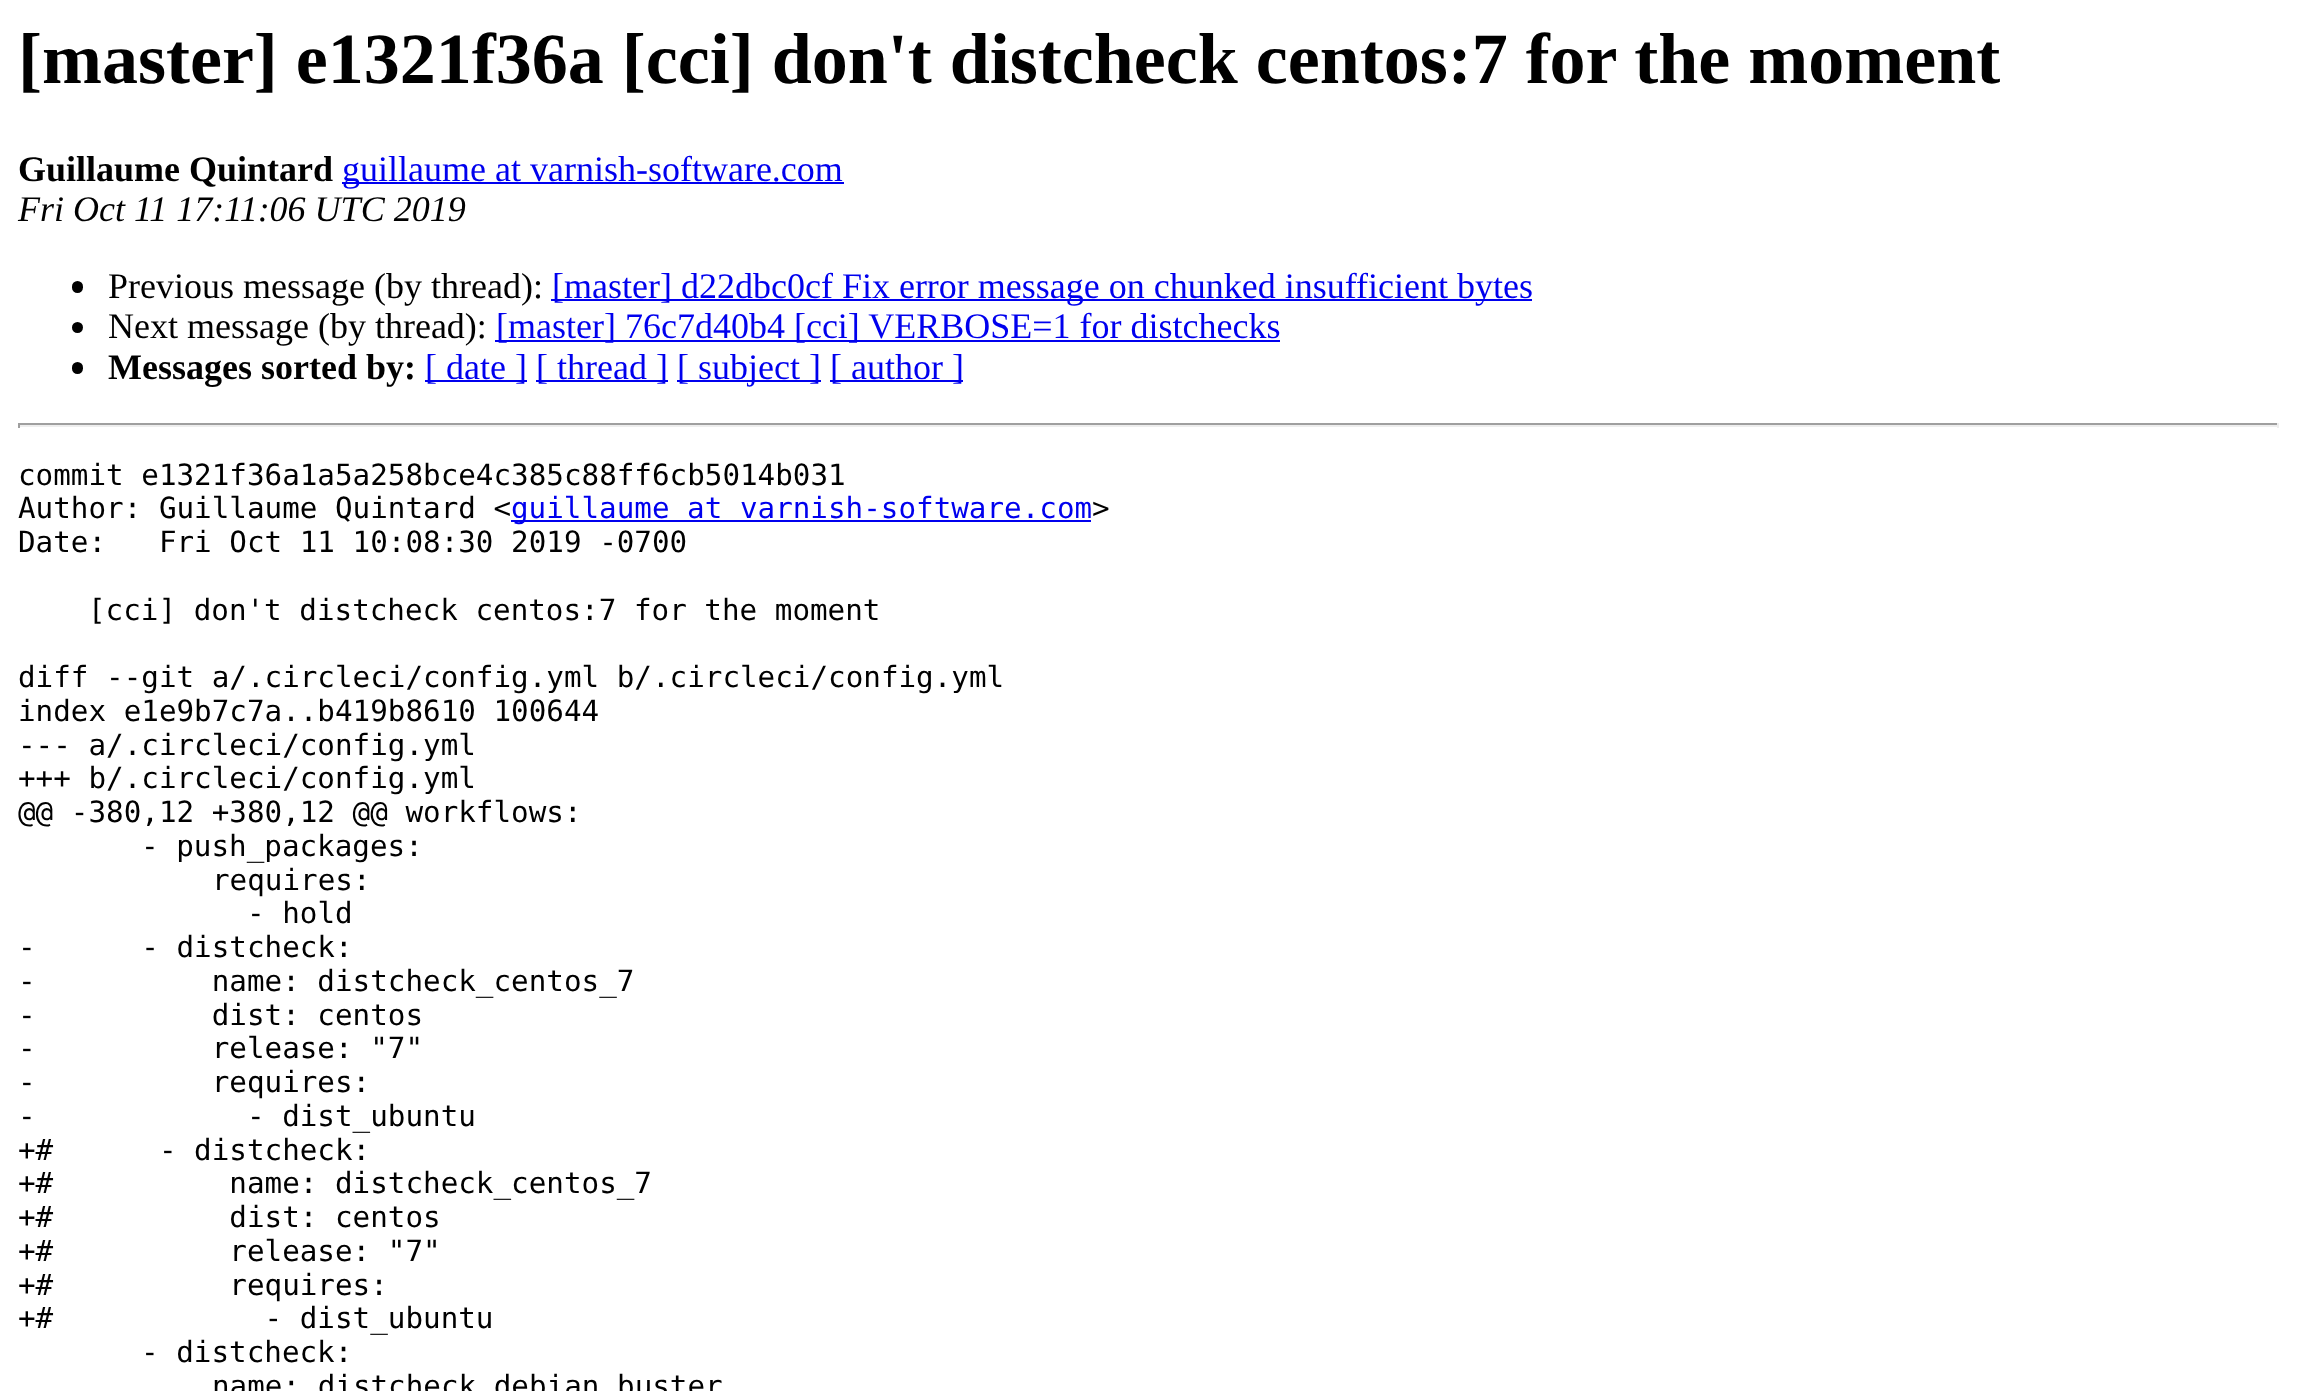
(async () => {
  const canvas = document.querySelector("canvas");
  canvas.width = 2297;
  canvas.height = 1391;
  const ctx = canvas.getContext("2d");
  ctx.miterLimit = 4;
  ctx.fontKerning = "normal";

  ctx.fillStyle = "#ffffff";
  ctx.fillRect(0, 0, 2297, 1391);
  ctx.fillStyle = "#0000ee";
  ctx.fillRect(342, 182, 502, 2);
  ctx.fillStyle = "#000000";
  ctx.beginPath();
  ctx.roundRect(72, 281, 11, 12, 5.5);
  ctx.fill();
  ctx.fillStyle = "#0000ee";
  ctx.fillRect(551, 299, 981, 2);
  ctx.fillStyle = "#000000";
  ctx.beginPath();
  ctx.arc(77.5, 327.5, 5.5, 0, Math.PI * 2);
  ctx.fill();
  ctx.fillStyle = "#0000ee";
  ctx.fillRect(495, 340, 785, 2);
  ctx.fillStyle = "#000000";
  ctx.beginPath();
  ctx.roundRect(72, 362, 11, 12, 5.5);
  ctx.fill();
  for (const [x, y, w, h, color] of [
    [425, 380, 102, 2, "#0000ee"],
    [536, 380, 132, 2, "#0000ee"],
    [677, 380, 144, 2, "#0000ee"],
    [830, 380, 133, 2, "#0000ee"],
    [18, 423, 2261, 2, "#9f9f9f"],
    [2277, 423, 2, 5, "#eeeeee"],
    [18, 425, 2261, 2, "#eeeeee"],
    [18, 423, 2, 5, "#9f9f9f"],
    [511, 520, 580, 2, "#0000ee"],
  ]) {
    ctx.fillStyle = color;
    ctx.fillRect(x, y, w, h);
  }
  ctx.font = "bold 72px Liberation Serif";
  ctx.fillStyle = "#000000";
  ctx.fillText("[master] e1321f36a [cci] don't distcheck centos:7 for the moment", 18, 83);
  ctx.font = "bold 36px Liberation Serif";
  ctx.fillText("Guillaume Quintard", 18, 181);
  ctx.font = "36px Liberation Serif";
  ctx.fillStyle = "#0000ee";
  ctx.fillText("guillaume at varnish-software.com", 342, 181);
  ctx.font = "italic 36px Liberation Serif";
  ctx.fillStyle = "#000000";
  ctx.fillText("Fri Oct 11 17:11:06 UTC 2019", 18, 221);
  ctx.font = "36px Liberation Serif";
  ctx.fillText("Previous message (by thread):", 108, 298);
  ctx.fillStyle = "#0000ee";
  ctx.fillText("[master] d22dbc0cf Fix error message on chunked insufficient bytes", 552, 298);
  ctx.fillStyle = "#000000";
  ctx.fillText("Next message (by thread):", 108, 338);
  ctx.fillStyle = "#0000ee";
  ctx.fillText("[master] 76c7d40b4 [cci] VERBOSE=1 for distchecks", 496, 338);
  ctx.font = "bold 36px Liberation Serif";
  ctx.fillStyle = "#000000";
  ctx.fillText("Messages sorted by:", 108, 379);
  ctx.font = "36px Liberation Serif";
  ctx.fillStyle = "#0000ee";
  for (const [text, x, y] of [
    ["[ date ]", 425, 379],
    ["[ thread ]", 536, 379],
    ["[ subject ]", 677, 379],
    ["[ author ]", 830, 379],
  ]) {
    ctx.fillText(text, x, y);
  }
  ctx.font = "29.25px DejaVu Sans Mono";
  ctx.fillStyle = "#000000";
  ctx.fillText("commit e1321f36a1a5a258bce4c385c88ff6cb5014b031", 18, 485);
  ctx.fillText("Author: Guillaume Quintard <", 18, 518);
  ctx.fillStyle = "#0000ee";
  ctx.fillText("guillaume at varnish-software.com", 511, 518);
  ctx.fillStyle = "#000000";
  for (const [text, x, y] of [
    [">", 1092, 518],
    ["Date:   Fri Oct 11 10:08:30 2019 -0700", 18, 552],
    ["[cci] don't distcheck centos:7 for the moment", 88, 620],
    ["diff --git a/.circleci/config.yml b/.circleci/config.yml", 18, 687],
    ["index e1e9b7c7a..b419b8610 100644", 18, 721],
    ["--- a/.circleci/config.yml", 18, 755],
    ["+++ b/.circleci/config.yml", 18, 788],
    ["@@ -380,12 +380,12 @@ workflows:", 18, 822],
    ["- push_packages:", 141, 856],
    ["requires:", 212, 890],
    ["- hold", 247, 923],
    ["-      - distcheck:", 18, 957],
    ["-          name: distcheck_centos_7", 18, 991],
    ["-          dist: centos", 18, 1025],
    ["-          release: \"7\"", 18, 1058],
    ["-          requires:", 18, 1092],
    ["-            - dist_ubuntu", 18, 1126],
    ["+#      - distcheck:", 18, 1160],
    ["+#          name: distcheck_centos_7", 18, 1193],
    ["+#          dist: centos", 18, 1227],
    ["+#          release: \"7\"", 18, 1261],
    ["+#          requires:", 18, 1295],
    ["+#            - dist_ubuntu", 18, 1328],
    ["- distcheck:", 141, 1362],
    ["name: distcheck_debian_buster", 212, 1396],
  ]) {
    ctx.fillText(text, x, y);
  }
})();
